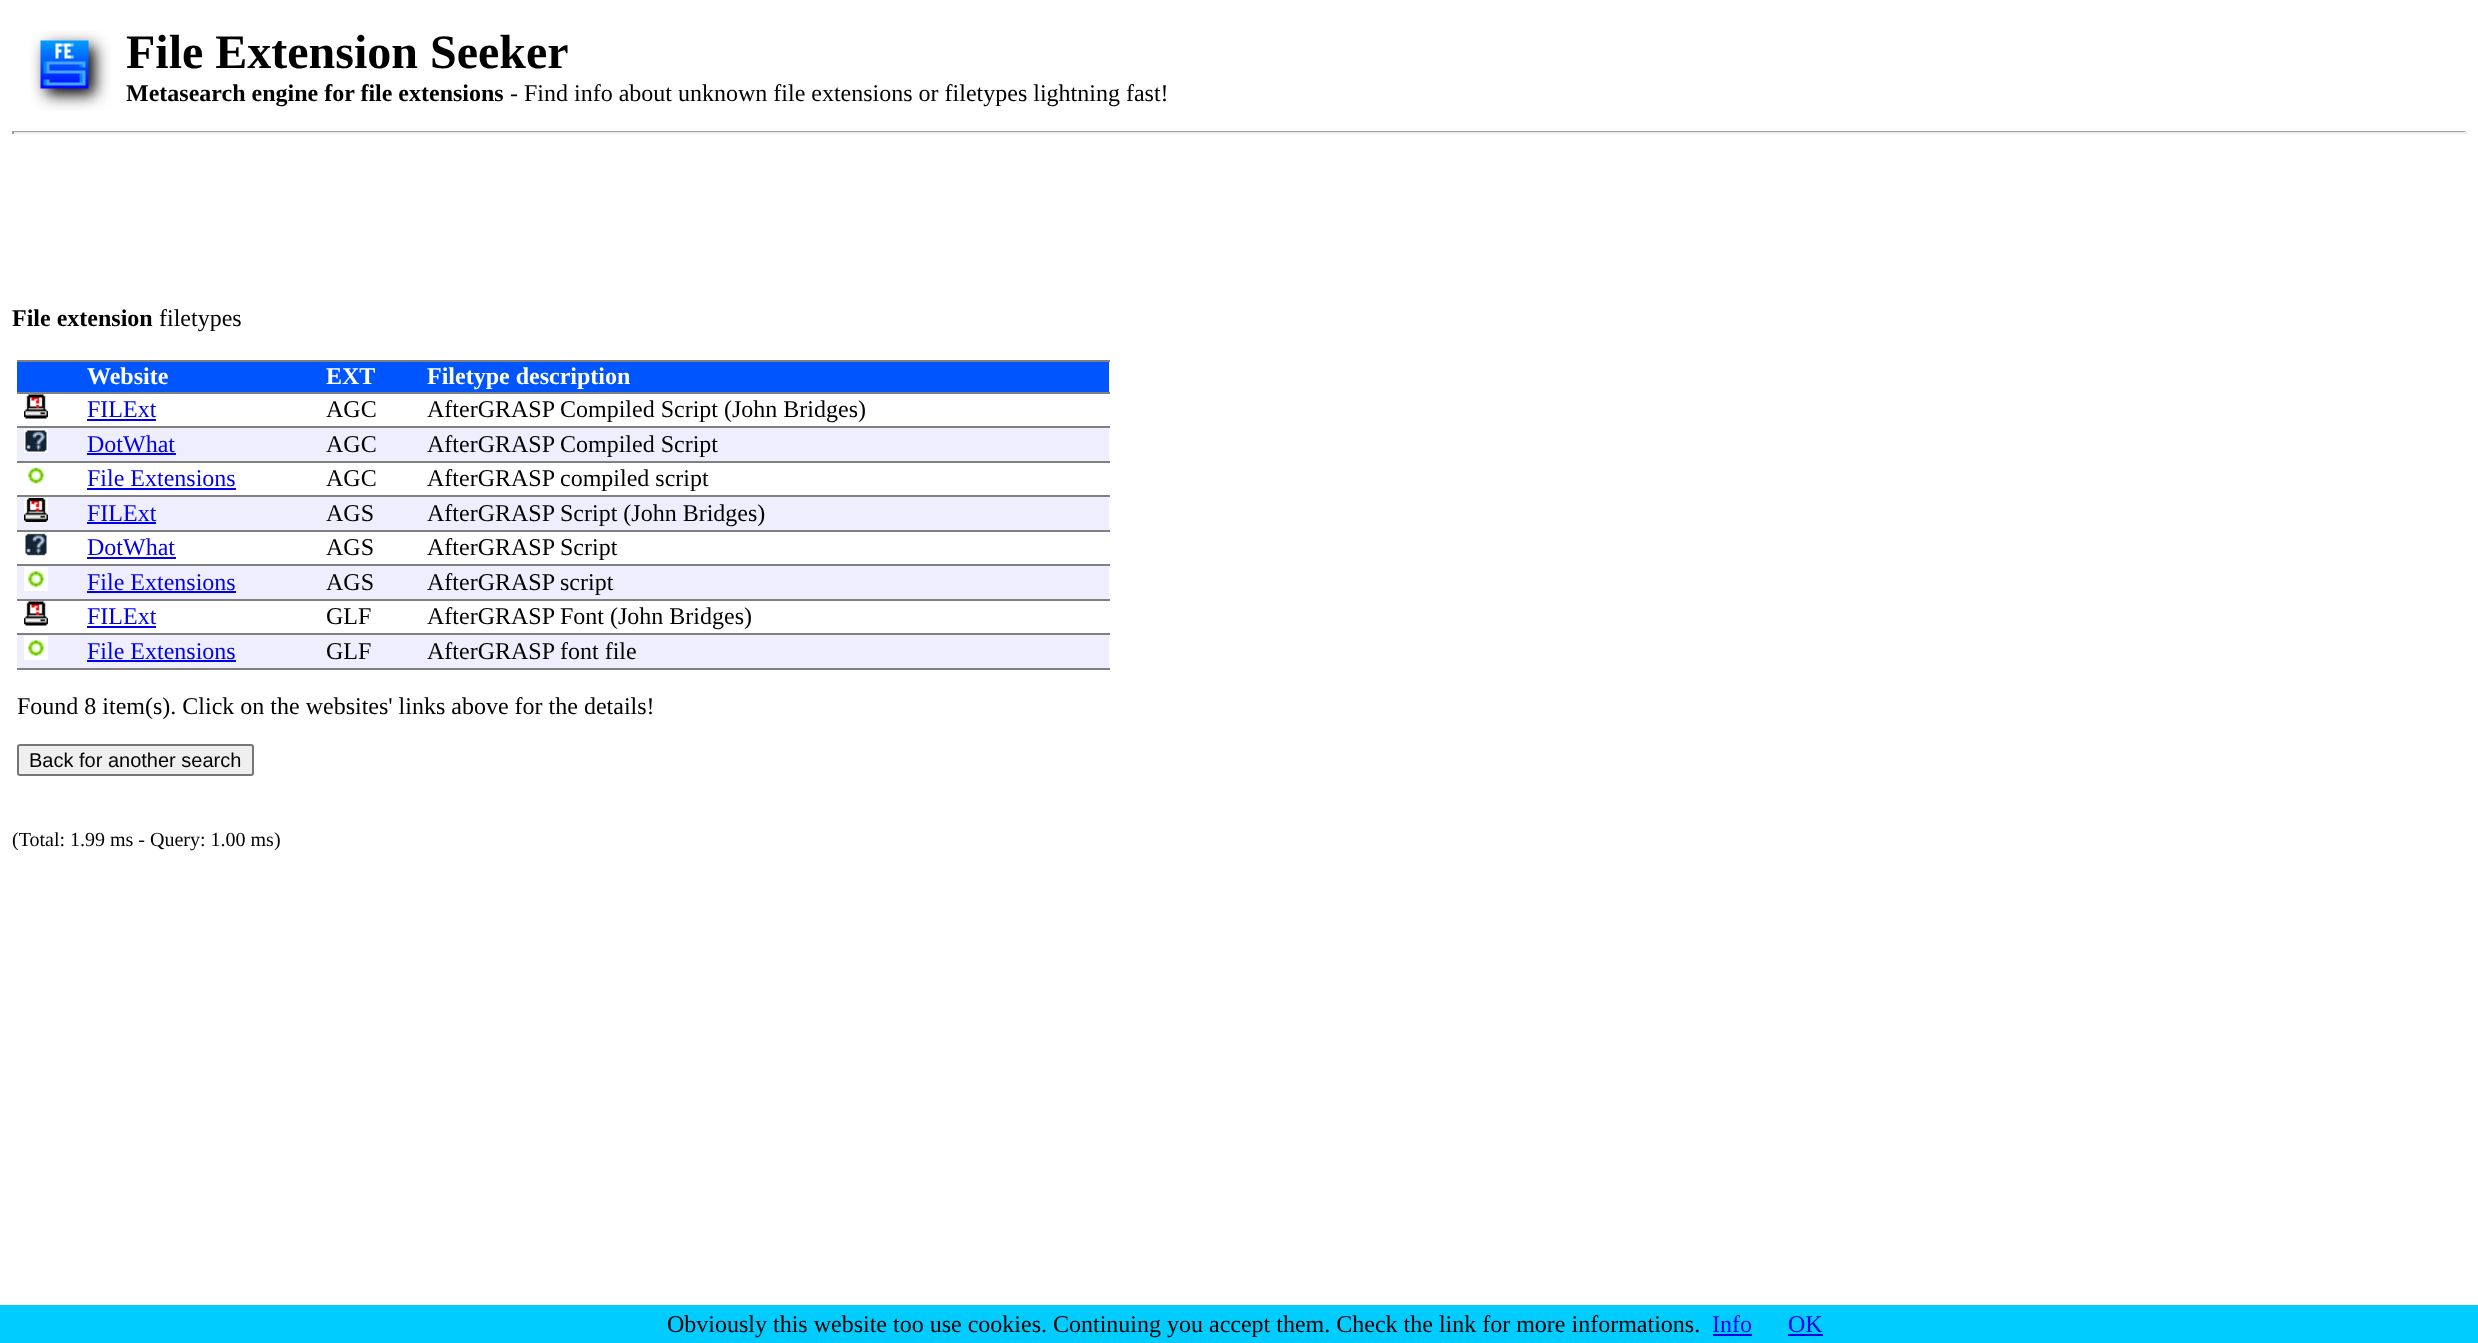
(async () => {
  const canvas = document.querySelector("canvas");
  canvas.width = 2478;
  canvas.height = 1343;
  const ctx = canvas.getContext("2d");
  ctx.miterLimit = 4;
  ctx.fontKerning = "normal";
  async function loadImage(src) {
    const img = new Image();
    img.src = src;
    await img.decode();
    return img;
  }

  ctx.fillStyle = "#ffffff";
  ctx.fillRect(0, 0, 2478, 1343);
  ctx.drawImage(await loadImage("img/1.png"), 30, 30, 81, 81);
  for (const [x, y, w, h, color] of [
    [12, 131, 2454, 1, "#9f9f9f"],
    [2465, 131, 2, 3, "#eeeeee"],
    [12, 132, 2454, 2, "#eeeeee"],
    [12, 131, 2, 3, "#9f9f9f"],
    [17, 360, 1093, 2, "#808080"],
    [17, 668, 1093, 2, "#808080"],
    [17, 362, 1092, 30, "#0055ff"],
  ]) {
    ctx.fillStyle = color;
    ctx.fillRect(x, y, w, h);
  }
  ctx.drawImage(await loadImage("img/2.png"), 24, 394, 24, 25);
  for (const [x, y, w, h, color] of [
    [87, 419, 69, 2, "#0000ee"],
    [17, 392, 1093, 2, "#808080"],
    [17, 428, 1092, 33, "#eeeeff"],
  ]) {
    ctx.fillStyle = color;
    ctx.fillRect(x, y, w, h);
  }
  ctx.drawImage(await loadImage("img/3.png"), 24, 429, 24, 24);
  ctx.fillStyle = "#0000ee";
  ctx.fillRect(87, 453, 89, 2);
  ctx.fillStyle = "#808080";
  ctx.fillRect(17, 426, 1093, 2);
  ctx.drawImage(await loadImage("img/4.png"), 28, 467, 16, 17);
  for (const [x, y, w, h, color] of [
    [87, 488, 149, 2, "#0000ee"],
    [17, 461, 1093, 2, "#808080"],
    [17, 497, 1092, 33, "#eeeeff"],
  ]) {
    ctx.fillStyle = color;
    ctx.fillRect(x, y, w, h);
  }
  ctx.drawImage(await loadImage("img/5.png"), 24, 498, 24, 24);
  ctx.fillStyle = "#0000ee";
  ctx.fillRect(87, 522, 69, 2);
  ctx.fillStyle = "#808080";
  ctx.fillRect(17, 495, 1093, 2);
  ctx.drawImage(await loadImage("img/6.png"), 25, 533, 22, 23);
  for (const [x, y, w, h, color] of [
    [87, 557, 89, 2, "#0000ee"],
    [17, 530, 1093, 2, "#808080"],
    [17, 566, 1092, 33, "#eeeeff"],
  ]) {
    ctx.fillStyle = color;
    ctx.fillRect(x, y, w, h);
  }
  ctx.drawImage(await loadImage("img/7.png"), 24, 567, 24, 24);
  ctx.fillStyle = "#0000ee";
  ctx.fillRect(87, 591, 149, 2);
  ctx.fillStyle = "#808080";
  ctx.fillRect(17, 564, 1093, 2);
  ctx.drawImage(await loadImage("img/2.png"), 24, 601, 24, 25);
  for (const [x, y, w, h, color] of [
    [87, 626, 69, 2, "#0000ee"],
    [17, 599, 1093, 2, "#808080"],
    [17, 635, 1092, 33, "#eeeeff"],
  ]) {
    ctx.fillStyle = color;
    ctx.fillRect(x, y, w, h);
  }
  ctx.drawImage(await loadImage("img/7.png"), 24, 636, 24, 24);
  ctx.fillStyle = "#0000ee";
  ctx.fillRect(87, 660, 149, 2);
  ctx.fillStyle = "#808080";
  ctx.fillRect(17, 633, 1093, 2);
  ctx.fillStyle = "#efefef";
  ctx.beginPath();
  ctx.roundRect(18, 745, 235, 30, 2);
  ctx.fill();
  ctx.strokeStyle = "#767676";
  ctx.lineWidth = 2;
  ctx.stroke();
  for (const [x, y, w, h, color] of [
    [0, 1305, 2478, 38, "#00ccff"],
    [1713, 1334, 39, 2, "#0000ee"],
    [1788, 1334, 35, 2, "#0000ee"],
  ]) {
    ctx.fillStyle = color;
    ctx.fillRect(x, y, w, h);
  }
  ctx.font = "bold 48px Liberation Serif";
  ctx.fillStyle = "#000000";
  ctx.fillText("File Extension Seeker", 126, 68);
  ctx.font = "bold 24px Liberation Serif";
  ctx.fillText("Metasearch engine for file extensions", 126, 101);
  ctx.font = "24px Liberation Serif";
  ctx.fillText("- Find info about unknown file extensions or filetypes lightning fast!", 510, 101);
  ctx.font = "bold 24px Liberation Serif";
  ctx.fillText("File extension", 12, 326);
  ctx.font = "24px Liberation Serif";
  ctx.fillText("filetypes", 159, 326);
  ctx.font = "bold 24px Liberation Serif";
  ctx.fillStyle = "#ffffff";
  for (const [text, x, y] of [
    ["Website", 87, 384],
    ["EXT", 326, 384],
    ["Filetype description", 427, 384],
  ]) {
    ctx.fillText(text, x, y);
  }
  ctx.font = "24px Liberation Serif";
  ctx.fillStyle = "#0000ee";
  ctx.fillText("FILExt", 87, 417);
  ctx.fillStyle = "#000000";
  for (const [text, x, y] of [
    ["AGC", 326, 417],
    ["AfterGRASP", 427, 417],
    ["Compiled Script (John Bridges)", 560, 417],
  ]) {
    ctx.fillText(text, x, y);
  }
  ctx.fillStyle = "#0000ee";
  ctx.fillText("DotWhat", 87, 452);
  ctx.fillStyle = "#000000";
  for (const [text, x, y] of [
    ["AGC", 326, 452],
    ["AfterGRASP", 427, 452],
    ["Compiled Script", 560, 452],
  ]) {
    ctx.fillText(text, x, y);
  }
  ctx.fillStyle = "#0000ee";
  ctx.fillText("File Extensions", 87, 486);
  ctx.fillStyle = "#000000";
  for (const [text, x, y] of [
    ["AGC", 326, 486],
    ["AfterGRASP", 427, 486],
    ["compiled script", 560, 486],
  ]) {
    ctx.fillText(text, x, y);
  }
  ctx.fillStyle = "#0000ee";
  ctx.fillText("FILExt", 87, 521);
  ctx.fillStyle = "#000000";
  for (const [text, x, y] of [
    ["AGS", 326, 521],
    ["AfterGRASP", 427, 521],
    ["Script (John Bridges)", 560, 521],
  ]) {
    ctx.fillText(text, x, y);
  }
  ctx.fillStyle = "#0000ee";
  ctx.fillText("DotWhat", 87, 555);
  ctx.fillStyle = "#000000";
  for (const [text, x, y] of [
    ["AGS", 326, 555],
    ["AfterGRASP", 427, 555],
    ["Script", 560, 555],
  ]) {
    ctx.fillText(text, x, y);
  }
  ctx.fillStyle = "#0000ee";
  ctx.fillText("File Extensions", 87, 590);
  ctx.fillStyle = "#000000";
  for (const [text, x, y] of [
    ["AGS", 326, 590],
    ["AfterGRASP", 427, 590],
    ["script", 560, 590],
  ]) {
    ctx.fillText(text, x, y);
  }
  ctx.fillStyle = "#0000ee";
  ctx.fillText("FILExt", 87, 624);
  ctx.fillStyle = "#000000";
  for (const [text, x, y] of [
    ["GLF", 326, 624],
    ["AfterGRASP", 427, 624],
    ["Font (John Bridges)", 560, 624],
  ]) {
    ctx.fillText(text, x, y);
  }
  ctx.fillStyle = "#0000ee";
  ctx.fillText("File Extensions", 87, 659);
  ctx.fillStyle = "#000000";
  for (const [text, x, y] of [
    ["GLF", 326, 659],
    ["AfterGRASP", 427, 659],
    ["font file", 560, 659],
    ["Found 8 item(s). Click on the websites' links above for the details!", 17, 714],
  ]) {
    ctx.fillText(text, x, y);
  }
  ctx.font = "20px Liberation Sans";
  ctx.fillText("Back for another search", 29, 767);
  ctx.font = "20px Liberation Serif";
  ctx.fillText("(Total: 1.99 ms - Query: 1.00 ms)", 12, 846);
  ctx.font = "24px Liberation Serif";
  ctx.fillText("Obviously this website too use cookies. Continuing you accept them. Check the link for more informations.", 667, 1332);
  ctx.fillStyle = "#0000ee";
  ctx.fillText("Info", 1712, 1332);
  ctx.fillText("OK", 1788, 1332);
})();
